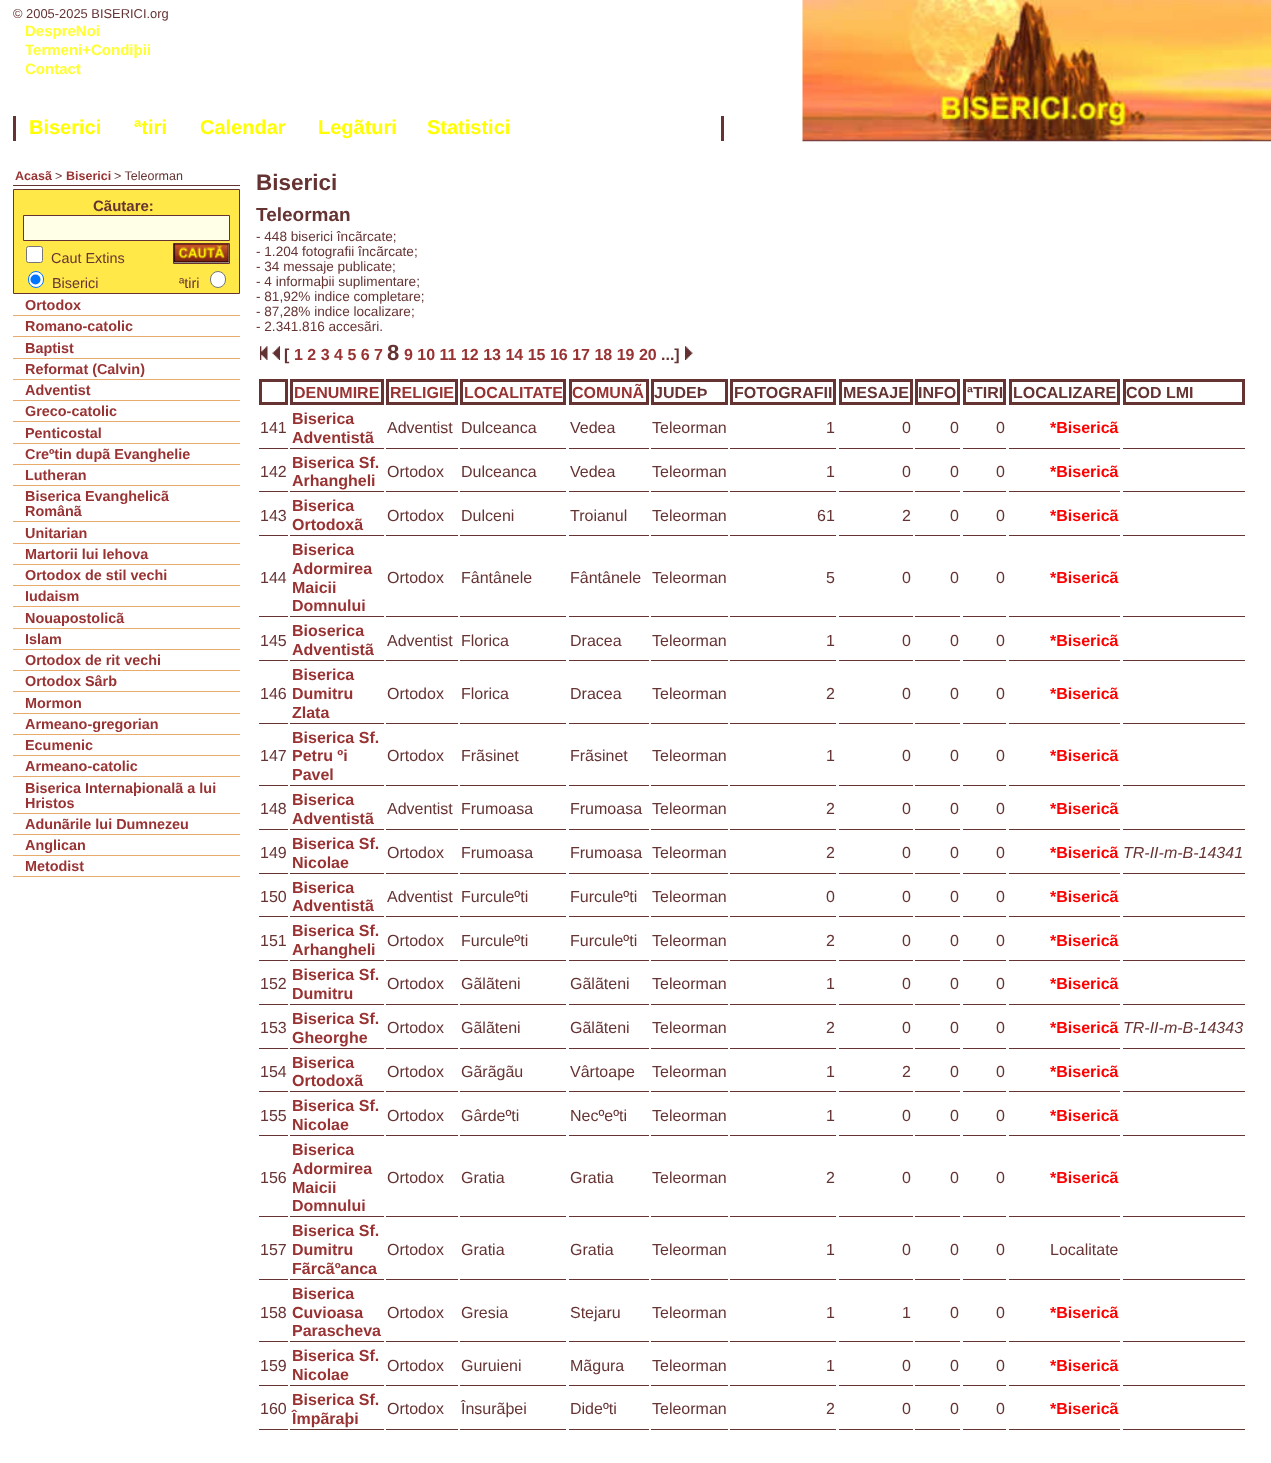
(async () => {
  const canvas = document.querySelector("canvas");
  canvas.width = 1271;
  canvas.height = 1463;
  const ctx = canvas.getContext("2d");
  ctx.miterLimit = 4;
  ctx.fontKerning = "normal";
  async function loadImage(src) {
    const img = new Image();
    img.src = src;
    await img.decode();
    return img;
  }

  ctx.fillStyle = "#ffffff";
  ctx.fillRect(0, 0, 1271, 1463);
  ctx.drawImage(await loadImage("img/1.png"), 802, 0, 469, 142);
  for (const [x, y, w, h, color] of [
    [721, 116, 3, 25, "#663333"],
    [13, 116, 3, 25, "#663333"],
    [13, 185, 227, 1, "#663333"],
  ]) {
    ctx.fillStyle = color;
    ctx.fillRect(x, y, w, h);
  }
  ctx.fillStyle = "#ffe848";
  ctx.beginPath();
  ctx.rect(13.5, 189.5, 226, 104);
  ctx.fill();
  ctx.strokeStyle = "#663333";
  ctx.stroke();
  ctx.fillStyle = "#ffffe8";
  ctx.beginPath();
  ctx.rect(23.5, 215.5, 206, 25);
  ctx.fill();
  ctx.stroke();
  ctx.fillStyle = "#ffffff";
  ctx.beginPath();
  ctx.roundRect(26.5, 246.5, 16, 16, 2);
  ctx.fill();
  ctx.strokeStyle = "#767676";
  ctx.stroke();
  ctx.fillStyle = "#ffffe8";
  ctx.beginPath();
  ctx.rect(173.5, 243.5, 56, 20);
  ctx.fill();
  ctx.strokeStyle = "#663333";
  ctx.stroke();
  ctx.drawImage(await loadImage("img/2.png"), 173, 243, 56, 20);
  ctx.fillStyle = "#ffffff";
  ctx.beginPath();
  ctx.roundRect(28.5, 271.5, 15, 16, 7.5);
  ctx.fill();
  ctx.strokeStyle = "#0075ff";
  ctx.stroke();
  ctx.fillStyle = "#0075ff";
  ctx.beginPath();
  ctx.arc(35.5, 279.5, 5, 0, Math.PI * 2);
  ctx.fill();
  ctx.fillStyle = "#ffffff";
  ctx.beginPath();
  ctx.roundRect(210.5, 271.5, 15, 16, 7.5);
  ctx.fill();
  ctx.strokeStyle = "#767676";
  ctx.stroke();
  for (const [x, y, w, h, color] of [
    [13, 315, 227, 1, "#e8ab6b"],
    [13, 336, 227, 1, "#e8ab6b"],
    [13, 358, 227, 1, "#e8ab6b"],
    [13, 379, 227, 1, "#e8ab6b"],
    [13, 400, 227, 1, "#e8ab6b"],
    [13, 421, 227, 1, "#e8ab6b"],
    [13, 443, 227, 1, "#e8ab6b"],
    [13, 464, 227, 1, "#e8ab6b"],
    [13, 485, 227, 1, "#e8ab6b"],
    [13, 521, 227, 1, "#e8ab6b"],
    [13, 543, 227, 1, "#e8ab6b"],
    [13, 564, 227, 1, "#e8ab6b"],
    [13, 585, 227, 1, "#e8ab6b"],
    [13, 606, 227, 1, "#e8ab6b"],
    [13, 628, 227, 1, "#e8ab6b"],
    [13, 649, 227, 1, "#e8ab6b"],
    [13, 670, 227, 1, "#e8ab6b"],
    [13, 691, 227, 1, "#e8ab6b"],
    [13, 713, 227, 1, "#e8ab6b"],
    [13, 734, 227, 1, "#e8ab6b"],
    [13, 755, 227, 1, "#e8ab6b"],
    [13, 776, 227, 1, "#e8ab6b"],
    [13, 813, 227, 1, "#e8ab6b"],
    [13, 834, 227, 1, "#e8ab6b"],
    [13, 855, 227, 1, "#e8ab6b"],
    [13, 876, 227, 1, "#e8ab6b"],
  ]) {
    ctx.fillStyle = color;
    ctx.fillRect(x, y, w, h);
  }
  ctx.drawImage(await loadImage("img/3.png"), 260, 346, 8, 14);
  ctx.drawImage(await loadImage("img/4.png"), 272, 346, 8, 14);
  ctx.drawImage(await loadImage("img/5.png"), 685, 346, 8, 14);
  ctx.strokeStyle = "#663333";
  ctx.lineWidth = 3;
  ctx.strokeRect(260.5, 380.5, 26, 23);
  ctx.strokeRect(291.5, 380.5, 91, 23);
  ctx.strokeRect(387.5, 380.5, 69, 23);
  ctx.strokeRect(461.5, 380.5, 103, 23);
  ctx.strokeRect(570.5, 380.5, 77, 23);
  ctx.strokeRect(652.5, 380.5, 74, 23);
  ctx.strokeRect(731.5, 380.5, 103, 23);
  ctx.strokeRect(840.5, 380.5, 71, 23);
  ctx.strokeRect(916.5, 380.5, 42, 23);
  ctx.strokeRect(964.5, 380.5, 40, 23);
  ctx.strokeRect(1010.5, 380.5, 108, 23);
  ctx.strokeRect(1124.5, 380.5, 119, 23);
  for (const [x, y, w, h, color] of [
    [259, 448, 29, 1, "#663333"],
    [290, 448, 94, 1, "#663333"],
    [386, 448, 72, 1, "#663333"],
    [460, 448, 106, 1, "#663333"],
    [569, 448, 80, 1, "#663333"],
    [651, 448, 77, 1, "#663333"],
    [730, 448, 106, 1, "#663333"],
    [839, 448, 74, 1, "#663333"],
    [915, 448, 45, 1, "#663333"],
    [963, 448, 43, 1, "#663333"],
    [1009, 448, 111, 1, "#663333"],
    [1123, 448, 122, 1, "#663333"],
    [259, 491, 29, 1, "#663333"],
    [290, 491, 94, 1, "#663333"],
    [386, 491, 72, 1, "#663333"],
    [460, 491, 106, 1, "#663333"],
    [569, 491, 80, 1, "#663333"],
    [651, 491, 77, 1, "#663333"],
    [730, 491, 106, 1, "#663333"],
    [839, 491, 74, 1, "#663333"],
    [915, 491, 45, 1, "#663333"],
    [963, 491, 43, 1, "#663333"],
    [1009, 491, 111, 1, "#663333"],
    [1123, 491, 122, 1, "#663333"],
    [259, 535, 29, 1, "#663333"],
    [290, 535, 94, 1, "#663333"],
    [386, 535, 72, 1, "#663333"],
    [460, 535, 106, 1, "#663333"],
    [569, 535, 80, 1, "#663333"],
    [651, 535, 77, 1, "#663333"],
    [730, 535, 106, 1, "#663333"],
    [839, 535, 74, 1, "#663333"],
    [915, 535, 45, 1, "#663333"],
    [963, 535, 43, 1, "#663333"],
    [1009, 535, 111, 1, "#663333"],
    [1123, 535, 122, 1, "#663333"],
    [259, 616, 29, 1, "#663333"],
    [290, 616, 94, 1, "#663333"],
    [386, 616, 72, 1, "#663333"],
    [460, 616, 106, 1, "#663333"],
    [569, 616, 80, 1, "#663333"],
    [651, 616, 77, 1, "#663333"],
    [730, 616, 106, 1, "#663333"],
    [839, 616, 74, 1, "#663333"],
    [915, 616, 45, 1, "#663333"],
    [963, 616, 43, 1, "#663333"],
    [1009, 616, 111, 1, "#663333"],
    [1123, 616, 122, 1, "#663333"],
    [259, 660, 29, 1, "#663333"],
    [290, 660, 94, 1, "#663333"],
    [386, 660, 72, 1, "#663333"],
    [460, 660, 106, 1, "#663333"],
    [569, 660, 80, 1, "#663333"],
    [651, 660, 77, 1, "#663333"],
    [730, 660, 106, 1, "#663333"],
    [839, 660, 74, 1, "#663333"],
    [915, 660, 45, 1, "#663333"],
    [963, 660, 43, 1, "#663333"],
    [1009, 660, 111, 1, "#663333"],
    [1123, 660, 122, 1, "#663333"],
    [259, 723, 29, 1, "#663333"],
    [290, 723, 94, 1, "#663333"],
    [386, 723, 72, 1, "#663333"],
    [460, 723, 106, 1, "#663333"],
    [569, 723, 80, 1, "#663333"],
    [651, 723, 77, 1, "#663333"],
    [730, 723, 106, 1, "#663333"],
    [839, 723, 74, 1, "#663333"],
    [915, 723, 45, 1, "#663333"],
    [963, 723, 43, 1, "#663333"],
    [1009, 723, 111, 1, "#663333"],
    [1123, 723, 122, 1, "#663333"],
    [259, 785, 29, 1, "#663333"],
    [290, 785, 94, 1, "#663333"],
    [386, 785, 72, 1, "#663333"],
    [460, 785, 106, 1, "#663333"],
    [569, 785, 80, 1, "#663333"],
    [651, 785, 77, 1, "#663333"],
    [730, 785, 106, 1, "#663333"],
    [839, 785, 74, 1, "#663333"],
    [915, 785, 45, 1, "#663333"],
    [963, 785, 43, 1, "#663333"],
    [1009, 785, 111, 1, "#663333"],
    [1123, 785, 122, 1, "#663333"],
    [259, 829, 29, 1, "#663333"],
    [290, 829, 94, 1, "#663333"],
    [386, 829, 72, 1, "#663333"],
    [460, 829, 106, 1, "#663333"],
    [569, 829, 80, 1, "#663333"],
    [651, 829, 77, 1, "#663333"],
    [730, 829, 106, 1, "#663333"],
    [839, 829, 74, 1, "#663333"],
    [915, 829, 45, 1, "#663333"],
    [963, 829, 43, 1, "#663333"],
    [1009, 829, 111, 1, "#663333"],
    [1123, 829, 122, 1, "#663333"],
    [259, 873, 29, 1, "#663333"],
    [290, 873, 94, 1, "#663333"],
    [386, 873, 72, 1, "#663333"],
    [460, 873, 106, 1, "#663333"],
    [569, 873, 80, 1, "#663333"],
    [651, 873, 77, 1, "#663333"],
    [730, 873, 106, 1, "#663333"],
    [839, 873, 74, 1, "#663333"],
    [915, 873, 45, 1, "#663333"],
    [963, 873, 43, 1, "#663333"],
    [1009, 873, 111, 1, "#663333"],
    [1123, 873, 122, 1, "#663333"],
    [259, 916, 29, 1, "#663333"],
    [290, 916, 94, 1, "#663333"],
    [386, 916, 72, 1, "#663333"],
    [460, 916, 106, 1, "#663333"],
    [569, 916, 80, 1, "#663333"],
    [651, 916, 77, 1, "#663333"],
    [730, 916, 106, 1, "#663333"],
    [839, 916, 74, 1, "#663333"],
    [915, 916, 45, 1, "#663333"],
    [963, 916, 43, 1, "#663333"],
    [1009, 916, 111, 1, "#663333"],
    [1123, 916, 122, 1, "#663333"],
    [259, 960, 29, 1, "#663333"],
    [290, 960, 94, 1, "#663333"],
    [386, 960, 72, 1, "#663333"],
    [460, 960, 106, 1, "#663333"],
    [569, 960, 80, 1, "#663333"],
    [651, 960, 77, 1, "#663333"],
    [730, 960, 106, 1, "#663333"],
    [839, 960, 74, 1, "#663333"],
    [915, 960, 45, 1, "#663333"],
    [963, 960, 43, 1, "#663333"],
    [1009, 960, 111, 1, "#663333"],
    [1123, 960, 122, 1, "#663333"],
    [259, 1004, 29, 1, "#663333"],
    [290, 1004, 94, 1, "#663333"],
    [386, 1004, 72, 1, "#663333"],
    [460, 1004, 106, 1, "#663333"],
    [569, 1004, 80, 1, "#663333"],
    [651, 1004, 77, 1, "#663333"],
    [730, 1004, 106, 1, "#663333"],
    [839, 1004, 74, 1, "#663333"],
    [915, 1004, 45, 1, "#663333"],
    [963, 1004, 43, 1, "#663333"],
    [1009, 1004, 111, 1, "#663333"],
    [1123, 1004, 122, 1, "#663333"],
    [259, 1048, 29, 1, "#663333"],
    [290, 1048, 94, 1, "#663333"],
    [386, 1048, 72, 1, "#663333"],
    [460, 1048, 106, 1, "#663333"],
    [569, 1048, 80, 1, "#663333"],
    [651, 1048, 77, 1, "#663333"],
    [730, 1048, 106, 1, "#663333"],
    [839, 1048, 74, 1, "#663333"],
    [915, 1048, 45, 1, "#663333"],
    [963, 1048, 43, 1, "#663333"],
    [1009, 1048, 111, 1, "#663333"],
    [1123, 1048, 122, 1, "#663333"],
    [259, 1091, 29, 1, "#663333"],
    [290, 1091, 94, 1, "#663333"],
    [386, 1091, 72, 1, "#663333"],
    [460, 1091, 106, 1, "#663333"],
    [569, 1091, 80, 1, "#663333"],
    [651, 1091, 77, 1, "#663333"],
    [730, 1091, 106, 1, "#663333"],
    [839, 1091, 74, 1, "#663333"],
    [915, 1091, 45, 1, "#663333"],
    [963, 1091, 43, 1, "#663333"],
    [1009, 1091, 111, 1, "#663333"],
    [1123, 1091, 122, 1, "#663333"],
    [259, 1135, 29, 1, "#663333"],
    [290, 1135, 94, 1, "#663333"],
    [386, 1135, 72, 1, "#663333"],
    [460, 1135, 106, 1, "#663333"],
    [569, 1135, 80, 1, "#663333"],
    [651, 1135, 77, 1, "#663333"],
    [730, 1135, 106, 1, "#663333"],
    [839, 1135, 74, 1, "#663333"],
    [915, 1135, 45, 1, "#663333"],
    [963, 1135, 43, 1, "#663333"],
    [1009, 1135, 111, 1, "#663333"],
    [1123, 1135, 122, 1, "#663333"],
    [259, 1216, 29, 1, "#663333"],
    [290, 1216, 94, 1, "#663333"],
    [386, 1216, 72, 1, "#663333"],
    [460, 1216, 106, 1, "#663333"],
    [569, 1216, 80, 1, "#663333"],
    [651, 1216, 77, 1, "#663333"],
    [730, 1216, 106, 1, "#663333"],
    [839, 1216, 74, 1, "#663333"],
    [915, 1216, 45, 1, "#663333"],
    [963, 1216, 43, 1, "#663333"],
    [1009, 1216, 111, 1, "#663333"],
    [1123, 1216, 122, 1, "#663333"],
    [259, 1279, 29, 1, "#663333"],
    [290, 1279, 94, 1, "#663333"],
    [386, 1279, 72, 1, "#663333"],
    [460, 1279, 106, 1, "#663333"],
    [569, 1279, 80, 1, "#663333"],
    [651, 1279, 77, 1, "#663333"],
    [730, 1279, 106, 1, "#663333"],
    [839, 1279, 74, 1, "#663333"],
    [915, 1279, 45, 1, "#663333"],
    [963, 1279, 43, 1, "#663333"],
    [1009, 1279, 111, 1, "#663333"],
    [1123, 1279, 122, 1, "#663333"],
    [259, 1341, 29, 1, "#663333"],
    [290, 1341, 94, 1, "#663333"],
    [386, 1341, 72, 1, "#663333"],
    [460, 1341, 106, 1, "#663333"],
    [569, 1341, 80, 1, "#663333"],
    [651, 1341, 77, 1, "#663333"],
    [730, 1341, 106, 1, "#663333"],
    [839, 1341, 74, 1, "#663333"],
    [915, 1341, 45, 1, "#663333"],
    [963, 1341, 43, 1, "#663333"],
    [1009, 1341, 111, 1, "#663333"],
    [1123, 1341, 122, 1, "#663333"],
    [259, 1385, 29, 1, "#663333"],
    [290, 1385, 94, 1, "#663333"],
    [386, 1385, 72, 1, "#663333"],
    [460, 1385, 106, 1, "#663333"],
    [569, 1385, 80, 1, "#663333"],
    [651, 1385, 77, 1, "#663333"],
    [730, 1385, 106, 1, "#663333"],
    [839, 1385, 74, 1, "#663333"],
    [915, 1385, 45, 1, "#663333"],
    [963, 1385, 43, 1, "#663333"],
    [1009, 1385, 111, 1, "#663333"],
    [1123, 1385, 122, 1, "#663333"],
    [259, 1429, 29, 1, "#663333"],
    [290, 1429, 94, 1, "#663333"],
    [386, 1429, 72, 1, "#663333"],
    [460, 1429, 106, 1, "#663333"],
    [569, 1429, 80, 1, "#663333"],
    [651, 1429, 77, 1, "#663333"],
    [730, 1429, 106, 1, "#663333"],
    [839, 1429, 74, 1, "#663333"],
    [915, 1429, 45, 1, "#663333"],
    [963, 1429, 43, 1, "#663333"],
    [1009, 1429, 111, 1, "#663333"],
    [1123, 1429, 122, 1, "#663333"],
  ]) {
    ctx.fillStyle = color;
    ctx.fillRect(x, y, w, h);
  }
  ctx.font = "12.9px Liberation Sans";
  ctx.fillText("© 2005-2025 BISERICI.org", 13, 18);
  ctx.font = "bold 15px Liberation Sans";
  ctx.fillStyle = "#ffff33";
  for (const [text, x, y] of [
    ["DespreNoi", 25, 36],
    ["Termeni+Condiþii", 25, 55],
    ["Contact", 25, 74],
  ]) {
    ctx.fillText(text, x, y);
  }
  ctx.font = "bold 20px Liberation Sans";
  ctx.fillStyle = "#ffff00";
  for (const [text, x, y] of [
    ["Biserici", 29, 134],
    ["ªtiri", 134, 134],
    ["Calendar", 200, 134],
    ["Legãturi", 318, 134],
    ["Statistici", 427, 134],
  ]) {
    ctx.fillText(text, x, y);
  }
  ctx.font = "bold 12.5px Liberation Sans";
  ctx.fillStyle = "#993333";
  ctx.fillText("Acasã", 15, 180);
  ctx.font = "12.5px Liberation Sans";
  ctx.fillStyle = "#663333";
  ctx.fillText(">", 55, 180);
  ctx.font = "bold 12.5px Liberation Sans";
  ctx.fillStyle = "#993333";
  ctx.fillText("Biserici", 66, 180);
  ctx.font = "12.5px Liberation Sans";
  ctx.fillStyle = "#663333";
  ctx.fillText("> Teleorman", 114, 180);
  ctx.font = "bold 15px Liberation Sans";
  ctx.fillText("Cãutare:", 93, 211);
  ctx.font = "14.4px Liberation Sans";
  for (const [text, x, y] of [
    ["Caut Extins", 51, 263],
    ["Biserici", 52, 288],
    ["ªtiri", 179, 288],
  ]) {
    ctx.fillText(text, x, y);
  }
  ctx.font = "bold 14.4px Liberation Sans";
  ctx.fillStyle = "#993333";
  for (const [text, x, y] of [
    ["Ortodox", 25, 310],
    ["Romano-catolic", 25, 331],
    ["Baptist", 25, 353],
    ["Reformat (Calvin)", 25, 374],
    ["Adventist", 25, 395],
    ["Greco-catolic", 25, 416],
    ["Penticostal", 25, 438],
    ["Creºtin dupã Evanghelie", 25, 459],
    ["Lutheran", 25, 480],
    ["Biserica Evanghelicã", 25, 501],
    ["Românã", 25, 516],
    ["Unitarian", 25, 538],
    ["Martorii lui Iehova", 25, 559],
    ["Ortodox de stil vechi", 25, 580],
    ["Iudaism", 25, 601],
    ["Nouapostolicã", 25, 623],
    ["Islam", 25, 644],
    ["Ortodox de rit vechi", 25, 665],
    ["Ortodox Sârb", 25, 686],
    ["Mormon", 25, 708],
    ["Armeano-gregorian", 25, 729],
    ["Ecumenic", 25, 750],
    ["Armeano-catolic", 25, 771],
    ["Biserica Internaþionalã a lui", 25, 793],
    ["Hristos", 25, 808],
    ["Adunãrile lui Dumnezeu", 25, 829],
    ["Anglican", 25, 850],
    ["Metodist", 25, 871],
  ]) {
    ctx.fillText(text, x, y);
  }
  ctx.font = "bold 22.5px Liberation Sans";
  ctx.fillStyle = "#663333";
  ctx.fillText("Biserici", 256, 190);
  ctx.font = "bold 19px Liberation Sans";
  ctx.fillText("Teleorman", 256, 221);
  ctx.font = "13.6px Liberation Sans";
  for (const [text, x, y] of [
    ["- 448 biserici încãrcate;", 256, 241],
    ["- 1.204 fotografii încãrcate;", 256, 256],
    ["- 34 messaje publicate;", 256, 271],
    ["- 4 informaþii suplimentare;", 256, 286],
    ["- 81,92% indice completare;", 256, 301],
    ["- 87,28% indice localizare;", 256, 316],
    ["- 2.341.816 accesãri.", 256, 331],
  ]) {
    ctx.fillText(text, x, y);
  }
  ctx.font = "bold 16px Liberation Sans";
  ctx.fillText("[", 284, 360);
  ctx.fillStyle = "#993333";
  ctx.fillText("1 2 3 4 5 6 7", 294, 360);
  ctx.font = "bold 22px Liberation Sans";
  ctx.fillStyle = "#663333";
  ctx.fillText("8", 387, 360);
  ctx.font = "bold 16px Liberation Sans";
  ctx.fillStyle = "#993333";
  ctx.fillText("9 10 11 12 13 14 15 16 17 18 19 20", 404, 360);
  ctx.fillStyle = "#663333";
  ctx.fillText("...]", 661, 360);
  ctx.fillStyle = "#993333";
  for (const [text, x, y] of [
    ["DENUMIRE", 294, 398],
    ["RELIGIE", 390, 398],
    ["LOCALITATE", 464, 398],
    ["COMUNÃ", 572, 398],
  ]) {
    ctx.fillText(text, x, y);
  }
  ctx.fillStyle = "#663333";
  for (const [text, x, y] of [
    ["JUDEÞ", 654, 398],
    ["FOTOGRAFII", 734, 398],
    ["MESAJE", 843, 398],
    ["INFO", 918, 398],
    ["ªTIRI", 967, 398],
    ["LOCALIZARE", 1013, 398],
    ["COD LMI", 1126, 398],
  ]) {
    ctx.fillText(text, x, y);
  }
  ctx.font = "16px Liberation Sans";
  ctx.fillText("141", 260, 433);
  ctx.font = "bold 16px Liberation Sans";
  ctx.fillStyle = "#993333";
  ctx.fillText("Biserica", 292, 424);
  ctx.fillText("Adventistã", 292, 443);
  ctx.font = "16px Liberation Sans";
  ctx.fillStyle = "#663333";
  for (const [text, x, y] of [
    ["Adventist", 387, 433],
    ["Dulceanca", 461, 433],
    ["Vedea", 570, 433],
    ["Teleorman", 652, 433],
    ["1", 826, 433],
    ["0", 902, 433],
    ["0", 950, 433],
    ["0", 996, 433],
  ]) {
    ctx.fillText(text, x, y);
  }
  ctx.font = "bold 16px Liberation Sans";
  ctx.fillStyle = "#ff0000";
  ctx.fillText("*Bisericã", 1050, 433);
  ctx.font = "16px Liberation Sans";
  ctx.fillStyle = "#663333";
  ctx.fillText("142", 260, 477);
  ctx.font = "bold 16px Liberation Sans";
  ctx.fillStyle = "#993333";
  ctx.fillText("Biserica Sf.", 292, 468);
  ctx.fillText("Arhangheli", 292, 486);
  ctx.font = "16px Liberation Sans";
  ctx.fillStyle = "#663333";
  for (const [text, x, y] of [
    ["Ortodox", 387, 477],
    ["Dulceanca", 461, 477],
    ["Vedea", 570, 477],
    ["Teleorman", 652, 477],
    ["1", 826, 477],
    ["0", 902, 477],
    ["0", 950, 477],
    ["0", 996, 477],
  ]) {
    ctx.fillText(text, x, y);
  }
  ctx.font = "bold 16px Liberation Sans";
  ctx.fillStyle = "#ff0000";
  ctx.fillText("*Bisericã", 1050, 477);
  ctx.font = "16px Liberation Sans";
  ctx.fillStyle = "#663333";
  ctx.fillText("143", 260, 521);
  ctx.font = "bold 16px Liberation Sans";
  ctx.fillStyle = "#993333";
  ctx.fillText("Biserica", 292, 511);
  ctx.fillText("Ortodoxã", 292, 530);
  ctx.font = "16px Liberation Sans";
  ctx.fillStyle = "#663333";
  for (const [text, x, y] of [
    ["Ortodox", 387, 521],
    ["Dulceni", 461, 521],
    ["Troianul", 570, 521],
    ["Teleorman", 652, 521],
    ["61", 817, 521],
    ["2", 902, 521],
    ["0", 950, 521],
    ["0", 996, 521],
  ]) {
    ctx.fillText(text, x, y);
  }
  ctx.font = "bold 16px Liberation Sans";
  ctx.fillStyle = "#ff0000";
  ctx.fillText("*Bisericã", 1050, 521);
  ctx.font = "16px Liberation Sans";
  ctx.fillStyle = "#663333";
  ctx.fillText("144", 260, 583);
  ctx.font = "bold 16px Liberation Sans";
  ctx.fillStyle = "#993333";
  for (const [text, x, y] of [
    ["Biserica", 292, 555],
    ["Adormirea", 292, 574],
    ["Maicii", 292, 593],
    ["Domnului", 292, 611],
  ]) {
    ctx.fillText(text, x, y);
  }
  ctx.font = "16px Liberation Sans";
  ctx.fillStyle = "#663333";
  for (const [text, x, y] of [
    ["Ortodox", 387, 583],
    ["Fântânele", 461, 583],
    ["Fântânele", 570, 583],
    ["Teleorman", 652, 583],
    ["5", 826, 583],
    ["0", 902, 583],
    ["0", 950, 583],
    ["0", 996, 583],
  ]) {
    ctx.fillText(text, x, y);
  }
  ctx.font = "bold 16px Liberation Sans";
  ctx.fillStyle = "#ff0000";
  ctx.fillText("*Bisericã", 1050, 583);
  ctx.font = "16px Liberation Sans";
  ctx.fillStyle = "#663333";
  ctx.fillText("145", 260, 646);
  ctx.font = "bold 16px Liberation Sans";
  ctx.fillStyle = "#993333";
  ctx.fillText("Bioserica", 292, 636);
  ctx.fillText("Adventistã", 292, 655);
  ctx.font = "16px Liberation Sans";
  ctx.fillStyle = "#663333";
  for (const [text, x, y] of [
    ["Adventist", 387, 646],
    ["Florica", 461, 646],
    ["Dracea", 570, 646],
    ["Teleorman", 652, 646],
    ["1", 826, 646],
    ["0", 902, 646],
    ["0", 950, 646],
    ["0", 996, 646],
  ]) {
    ctx.fillText(text, x, y);
  }
  ctx.font = "bold 16px Liberation Sans";
  ctx.fillStyle = "#ff0000";
  ctx.fillText("*Bisericã", 1050, 646);
  ctx.font = "16px Liberation Sans";
  ctx.fillStyle = "#663333";
  ctx.fillText("146", 260, 699);
  ctx.font = "bold 16px Liberation Sans";
  ctx.fillStyle = "#993333";
  for (const [text, x, y] of [
    ["Biserica", 292, 680],
    ["Dumitru", 292, 699],
    ["Zlata", 292, 718],
  ]) {
    ctx.fillText(text, x, y);
  }
  ctx.font = "16px Liberation Sans";
  ctx.fillStyle = "#663333";
  for (const [text, x, y] of [
    ["Ortodox", 387, 699],
    ["Florica", 461, 699],
    ["Dracea", 570, 699],
    ["Teleorman", 652, 699],
    ["2", 826, 699],
    ["0", 902, 699],
    ["0", 950, 699],
    ["0", 996, 699],
  ]) {
    ctx.fillText(text, x, y);
  }
  ctx.font = "bold 16px Liberation Sans";
  ctx.fillStyle = "#ff0000";
  ctx.fillText("*Bisericã", 1050, 699);
  ctx.font = "16px Liberation Sans";
  ctx.fillStyle = "#663333";
  ctx.fillText("147", 260, 761);
  ctx.font = "bold 16px Liberation Sans";
  ctx.fillStyle = "#993333";
  for (const [text, x, y] of [
    ["Biserica Sf.", 292, 743],
    ["Petru ºi", 292, 761],
    ["Pavel", 292, 780],
  ]) {
    ctx.fillText(text, x, y);
  }
  ctx.font = "16px Liberation Sans";
  ctx.fillStyle = "#663333";
  for (const [text, x, y] of [
    ["Ortodox", 387, 761],
    ["Frãsinet", 461, 761],
    ["Frãsinet", 570, 761],
    ["Teleorman", 652, 761],
    ["1", 826, 761],
    ["0", 902, 761],
    ["0", 950, 761],
    ["0", 996, 761],
  ]) {
    ctx.fillText(text, x, y);
  }
  ctx.font = "bold 16px Liberation Sans";
  ctx.fillStyle = "#ff0000";
  ctx.fillText("*Bisericã", 1050, 761);
  ctx.font = "16px Liberation Sans";
  ctx.fillStyle = "#663333";
  ctx.fillText("148", 260, 814);
  ctx.font = "bold 16px Liberation Sans";
  ctx.fillStyle = "#993333";
  ctx.fillText("Biserica", 292, 805);
  ctx.fillText("Adventistã", 292, 824);
  ctx.font = "16px Liberation Sans";
  ctx.fillStyle = "#663333";
  for (const [text, x, y] of [
    ["Adventist", 387, 814],
    ["Frumoasa", 461, 814],
    ["Frumoasa", 570, 814],
    ["Teleorman", 652, 814],
    ["2", 826, 814],
    ["0", 902, 814],
    ["0", 950, 814],
    ["0", 996, 814],
  ]) {
    ctx.fillText(text, x, y);
  }
  ctx.font = "bold 16px Liberation Sans";
  ctx.fillStyle = "#ff0000";
  ctx.fillText("*Bisericã", 1050, 814);
  ctx.font = "16px Liberation Sans";
  ctx.fillStyle = "#663333";
  ctx.fillText("149", 260, 858);
  ctx.font = "bold 16px Liberation Sans";
  ctx.fillStyle = "#993333";
  ctx.fillText("Biserica Sf.", 292, 849);
  ctx.fillText("Nicolae", 292, 868);
  ctx.font = "16px Liberation Sans";
  ctx.fillStyle = "#663333";
  for (const [text, x, y] of [
    ["Ortodox", 387, 858],
    ["Frumoasa", 461, 858],
    ["Frumoasa", 570, 858],
    ["Teleorman", 652, 858],
    ["2", 826, 858],
    ["0", 902, 858],
    ["0", 950, 858],
    ["0", 996, 858],
  ]) {
    ctx.fillText(text, x, y);
  }
  ctx.font = "bold 16px Liberation Sans";
  ctx.fillStyle = "#ff0000";
  ctx.fillText("*Bisericã", 1050, 858);
  ctx.font = "italic 16px Liberation Sans";
  ctx.fillStyle = "#663333";
  ctx.fillText("TR-II-m-B-14341", 1123, 858);
  ctx.font = "16px Liberation Sans";
  ctx.fillText("150", 260, 902);
  ctx.font = "bold 16px Liberation Sans";
  ctx.fillStyle = "#993333";
  ctx.fillText("Biserica", 292, 893);
  ctx.fillText("Adventistã", 292, 911);
  ctx.font = "16px Liberation Sans";
  ctx.fillStyle = "#663333";
  for (const [text, x, y] of [
    ["Adventist", 387, 902],
    ["Furculeºti", 461, 902],
    ["Furculeºti", 570, 902],
    ["Teleorman", 652, 902],
    ["0", 826, 902],
    ["0", 902, 902],
    ["0", 950, 902],
    ["0", 996, 902],
  ]) {
    ctx.fillText(text, x, y);
  }
  ctx.font = "bold 16px Liberation Sans";
  ctx.fillStyle = "#ff0000";
  ctx.fillText("*Bisericã", 1050, 902);
  ctx.font = "16px Liberation Sans";
  ctx.fillStyle = "#663333";
  ctx.fillText("151", 260, 946);
  ctx.font = "bold 16px Liberation Sans";
  ctx.fillStyle = "#993333";
  ctx.fillText("Biserica Sf.", 292, 936);
  ctx.fillText("Arhangheli", 292, 955);
  ctx.font = "16px Liberation Sans";
  ctx.fillStyle = "#663333";
  for (const [text, x, y] of [
    ["Ortodox", 387, 946],
    ["Furculeºti", 461, 946],
    ["Furculeºti", 570, 946],
    ["Teleorman", 652, 946],
    ["2", 826, 946],
    ["0", 902, 946],
    ["0", 950, 946],
    ["0", 996, 946],
  ]) {
    ctx.fillText(text, x, y);
  }
  ctx.font = "bold 16px Liberation Sans";
  ctx.fillStyle = "#ff0000";
  ctx.fillText("*Bisericã", 1050, 946);
  ctx.font = "16px Liberation Sans";
  ctx.fillStyle = "#663333";
  ctx.fillText("152", 260, 989);
  ctx.font = "bold 16px Liberation Sans";
  ctx.fillStyle = "#993333";
  ctx.fillText("Biserica Sf.", 292, 980);
  ctx.fillText("Dumitru", 292, 999);
  ctx.font = "16px Liberation Sans";
  ctx.fillStyle = "#663333";
  for (const [text, x, y] of [
    ["Ortodox", 387, 989],
    ["Gãlãteni", 461, 989],
    ["Gãlãteni", 570, 989],
    ["Teleorman", 652, 989],
    ["1", 826, 989],
    ["0", 902, 989],
    ["0", 950, 989],
    ["0", 996, 989],
  ]) {
    ctx.fillText(text, x, y);
  }
  ctx.font = "bold 16px Liberation Sans";
  ctx.fillStyle = "#ff0000";
  ctx.fillText("*Bisericã", 1050, 989);
  ctx.font = "16px Liberation Sans";
  ctx.fillStyle = "#663333";
  ctx.fillText("153", 260, 1033);
  ctx.font = "bold 16px Liberation Sans";
  ctx.fillStyle = "#993333";
  ctx.fillText("Biserica Sf.", 292, 1024);
  ctx.fillText("Gheorghe", 292, 1043);
  ctx.font = "16px Liberation Sans";
  ctx.fillStyle = "#663333";
  for (const [text, x, y] of [
    ["Ortodox", 387, 1033],
    ["Gãlãteni", 461, 1033],
    ["Gãlãteni", 570, 1033],
    ["Teleorman", 652, 1033],
    ["2", 826, 1033],
    ["0", 902, 1033],
    ["0", 950, 1033],
    ["0", 996, 1033],
  ]) {
    ctx.fillText(text, x, y);
  }
  ctx.font = "bold 16px Liberation Sans";
  ctx.fillStyle = "#ff0000";
  ctx.fillText("*Bisericã", 1050, 1033);
  ctx.font = "italic 16px Liberation Sans";
  ctx.fillStyle = "#663333";
  ctx.fillText("TR-II-m-B-14343", 1123, 1033);
  ctx.font = "16px Liberation Sans";
  ctx.fillText("154", 260, 1077);
  ctx.font = "bold 16px Liberation Sans";
  ctx.fillStyle = "#993333";
  ctx.fillText("Biserica", 292, 1068);
  ctx.fillText("Ortodoxã", 292, 1086);
  ctx.font = "16px Liberation Sans";
  ctx.fillStyle = "#663333";
  for (const [text, x, y] of [
    ["Ortodox", 387, 1077],
    ["Gãrãgãu", 461, 1077],
    ["Vârtoape", 570, 1077],
    ["Teleorman", 652, 1077],
    ["1", 826, 1077],
    ["2", 902, 1077],
    ["0", 950, 1077],
    ["0", 996, 1077],
  ]) {
    ctx.fillText(text, x, y);
  }
  ctx.font = "bold 16px Liberation Sans";
  ctx.fillStyle = "#ff0000";
  ctx.fillText("*Bisericã", 1050, 1077);
  ctx.font = "16px Liberation Sans";
  ctx.fillStyle = "#663333";
  ctx.fillText("155", 260, 1121);
  ctx.font = "bold 16px Liberation Sans";
  ctx.fillStyle = "#993333";
  ctx.fillText("Biserica Sf.", 292, 1111);
  ctx.fillText("Nicolae", 292, 1130);
  ctx.font = "16px Liberation Sans";
  ctx.fillStyle = "#663333";
  for (const [text, x, y] of [
    ["Ortodox", 387, 1121],
    ["Gârdeºti", 461, 1121],
    ["Necºeºti", 570, 1121],
    ["Teleorman", 652, 1121],
    ["1", 826, 1121],
    ["0", 902, 1121],
    ["0", 950, 1121],
    ["0", 996, 1121],
  ]) {
    ctx.fillText(text, x, y);
  }
  ctx.font = "bold 16px Liberation Sans";
  ctx.fillStyle = "#ff0000";
  ctx.fillText("*Bisericã", 1050, 1121);
  ctx.font = "16px Liberation Sans";
  ctx.fillStyle = "#663333";
  ctx.fillText("156", 260, 1183);
  ctx.font = "bold 16px Liberation Sans";
  ctx.fillStyle = "#993333";
  for (const [text, x, y] of [
    ["Biserica", 292, 1155],
    ["Adormirea", 292, 1174],
    ["Maicii", 292, 1193],
    ["Domnului", 292, 1211],
  ]) {
    ctx.fillText(text, x, y);
  }
  ctx.font = "16px Liberation Sans";
  ctx.fillStyle = "#663333";
  for (const [text, x, y] of [
    ["Ortodox", 387, 1183],
    ["Gratia", 461, 1183],
    ["Gratia", 570, 1183],
    ["Teleorman", 652, 1183],
    ["2", 826, 1183],
    ["0", 902, 1183],
    ["0", 950, 1183],
    ["0", 996, 1183],
  ]) {
    ctx.fillText(text, x, y);
  }
  ctx.font = "bold 16px Liberation Sans";
  ctx.fillStyle = "#ff0000";
  ctx.fillText("*Bisericã", 1050, 1183);
  ctx.font = "16px Liberation Sans";
  ctx.fillStyle = "#663333";
  ctx.fillText("157", 260, 1255);
  ctx.font = "bold 16px Liberation Sans";
  ctx.fillStyle = "#993333";
  for (const [text, x, y] of [
    ["Biserica Sf.", 292, 1236],
    ["Dumitru", 292, 1255],
    ["Fãrcãºanca", 292, 1274],
  ]) {
    ctx.fillText(text, x, y);
  }
  ctx.font = "16px Liberation Sans";
  ctx.fillStyle = "#663333";
  for (const [text, x, y] of [
    ["Ortodox", 387, 1255],
    ["Gratia", 461, 1255],
    ["Gratia", 570, 1255],
    ["Teleorman", 652, 1255],
    ["1", 826, 1255],
    ["0", 902, 1255],
    ["0", 950, 1255],
    ["0", 996, 1255],
    ["Localitate", 1050, 1255],
    ["158", 260, 1318],
  ]) {
    ctx.fillText(text, x, y);
  }
  ctx.font = "bold 16px Liberation Sans";
  ctx.fillStyle = "#993333";
  for (const [text, x, y] of [
    ["Biserica", 292, 1299],
    ["Cuvioasa", 292, 1318],
    ["Parascheva", 292, 1336],
  ]) {
    ctx.fillText(text, x, y);
  }
  ctx.font = "16px Liberation Sans";
  ctx.fillStyle = "#663333";
  for (const [text, x, y] of [
    ["Ortodox", 387, 1318],
    ["Gresia", 461, 1318],
    ["Stejaru", 570, 1318],
    ["Teleorman", 652, 1318],
    ["1", 826, 1318],
    ["1", 902, 1318],
    ["0", 950, 1318],
    ["0", 996, 1318],
  ]) {
    ctx.fillText(text, x, y);
  }
  ctx.font = "bold 16px Liberation Sans";
  ctx.fillStyle = "#ff0000";
  ctx.fillText("*Bisericã", 1050, 1318);
  ctx.font = "16px Liberation Sans";
  ctx.fillStyle = "#663333";
  ctx.fillText("159", 260, 1371);
  ctx.font = "bold 16px Liberation Sans";
  ctx.fillStyle = "#993333";
  ctx.fillText("Biserica Sf.", 292, 1361);
  ctx.fillText("Nicolae", 292, 1380);
  ctx.font = "16px Liberation Sans";
  ctx.fillStyle = "#663333";
  for (const [text, x, y] of [
    ["Ortodox", 387, 1371],
    ["Guruieni", 461, 1371],
    ["Mãgura", 570, 1371],
    ["Teleorman", 652, 1371],
    ["1", 826, 1371],
    ["0", 902, 1371],
    ["0", 950, 1371],
    ["0", 996, 1371],
  ]) {
    ctx.fillText(text, x, y);
  }
  ctx.font = "bold 16px Liberation Sans";
  ctx.fillStyle = "#ff0000";
  ctx.fillText("*Bisericã", 1050, 1371);
  ctx.font = "16px Liberation Sans";
  ctx.fillStyle = "#663333";
  ctx.fillText("160", 260, 1414);
  ctx.font = "bold 16px Liberation Sans";
  ctx.fillStyle = "#993333";
  ctx.fillText("Biserica Sf.", 292, 1405);
  ctx.fillText("Împãraþi", 292, 1424);
  ctx.font = "16px Liberation Sans";
  ctx.fillStyle = "#663333";
  for (const [text, x, y] of [
    ["Ortodox", 387, 1414],
    ["Însurãþei", 461, 1414],
    ["Dideºti", 570, 1414],
    ["Teleorman", 652, 1414],
    ["2", 826, 1414],
    ["0", 902, 1414],
    ["0", 950, 1414],
    ["0", 996, 1414],
  ]) {
    ctx.fillText(text, x, y);
  }
  ctx.font = "bold 16px Liberation Sans";
  ctx.fillStyle = "#ff0000";
  ctx.fillText("*Bisericã", 1050, 1414);
})();
